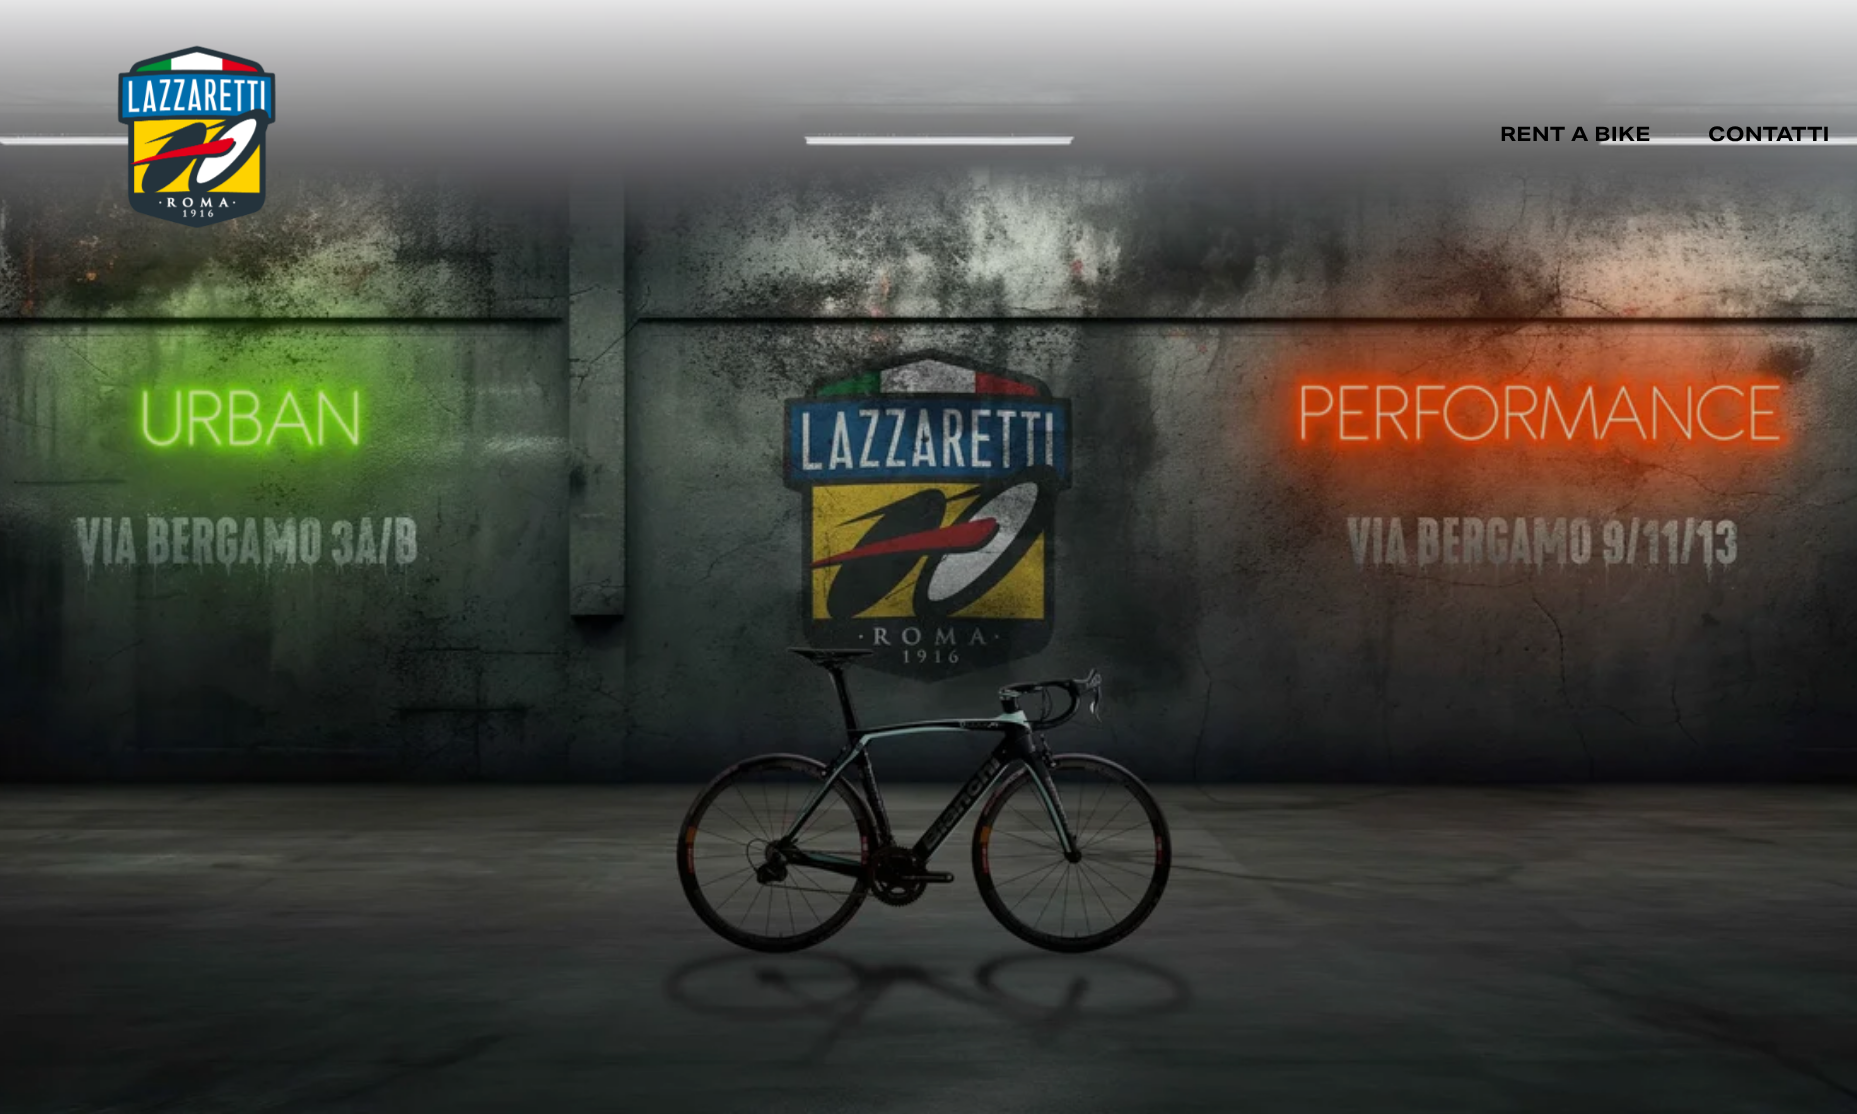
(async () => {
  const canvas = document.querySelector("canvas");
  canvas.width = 1857;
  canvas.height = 1114;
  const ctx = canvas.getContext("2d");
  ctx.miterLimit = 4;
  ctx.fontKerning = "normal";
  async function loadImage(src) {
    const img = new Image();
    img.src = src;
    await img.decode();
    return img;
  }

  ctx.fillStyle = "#ffffff";
  ctx.fillRect(0, 0, 1857, 1114);
  ctx.drawImage(await loadImage("img/1.png"), 0, 0, 1857, 1114);
  ctx.drawImage(await loadImage("img/2.png"), 117, 45, 159, 183);
  ctx.letterSpacing = "0.25px";
  ctx.font = "bold 20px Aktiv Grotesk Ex";
  ctx.fillStyle = "#000000";
  ctx.fillText("RENT A BIKE", 1500, 141);
  ctx.fillText("CONTATTI", 1708, 141);
})();
